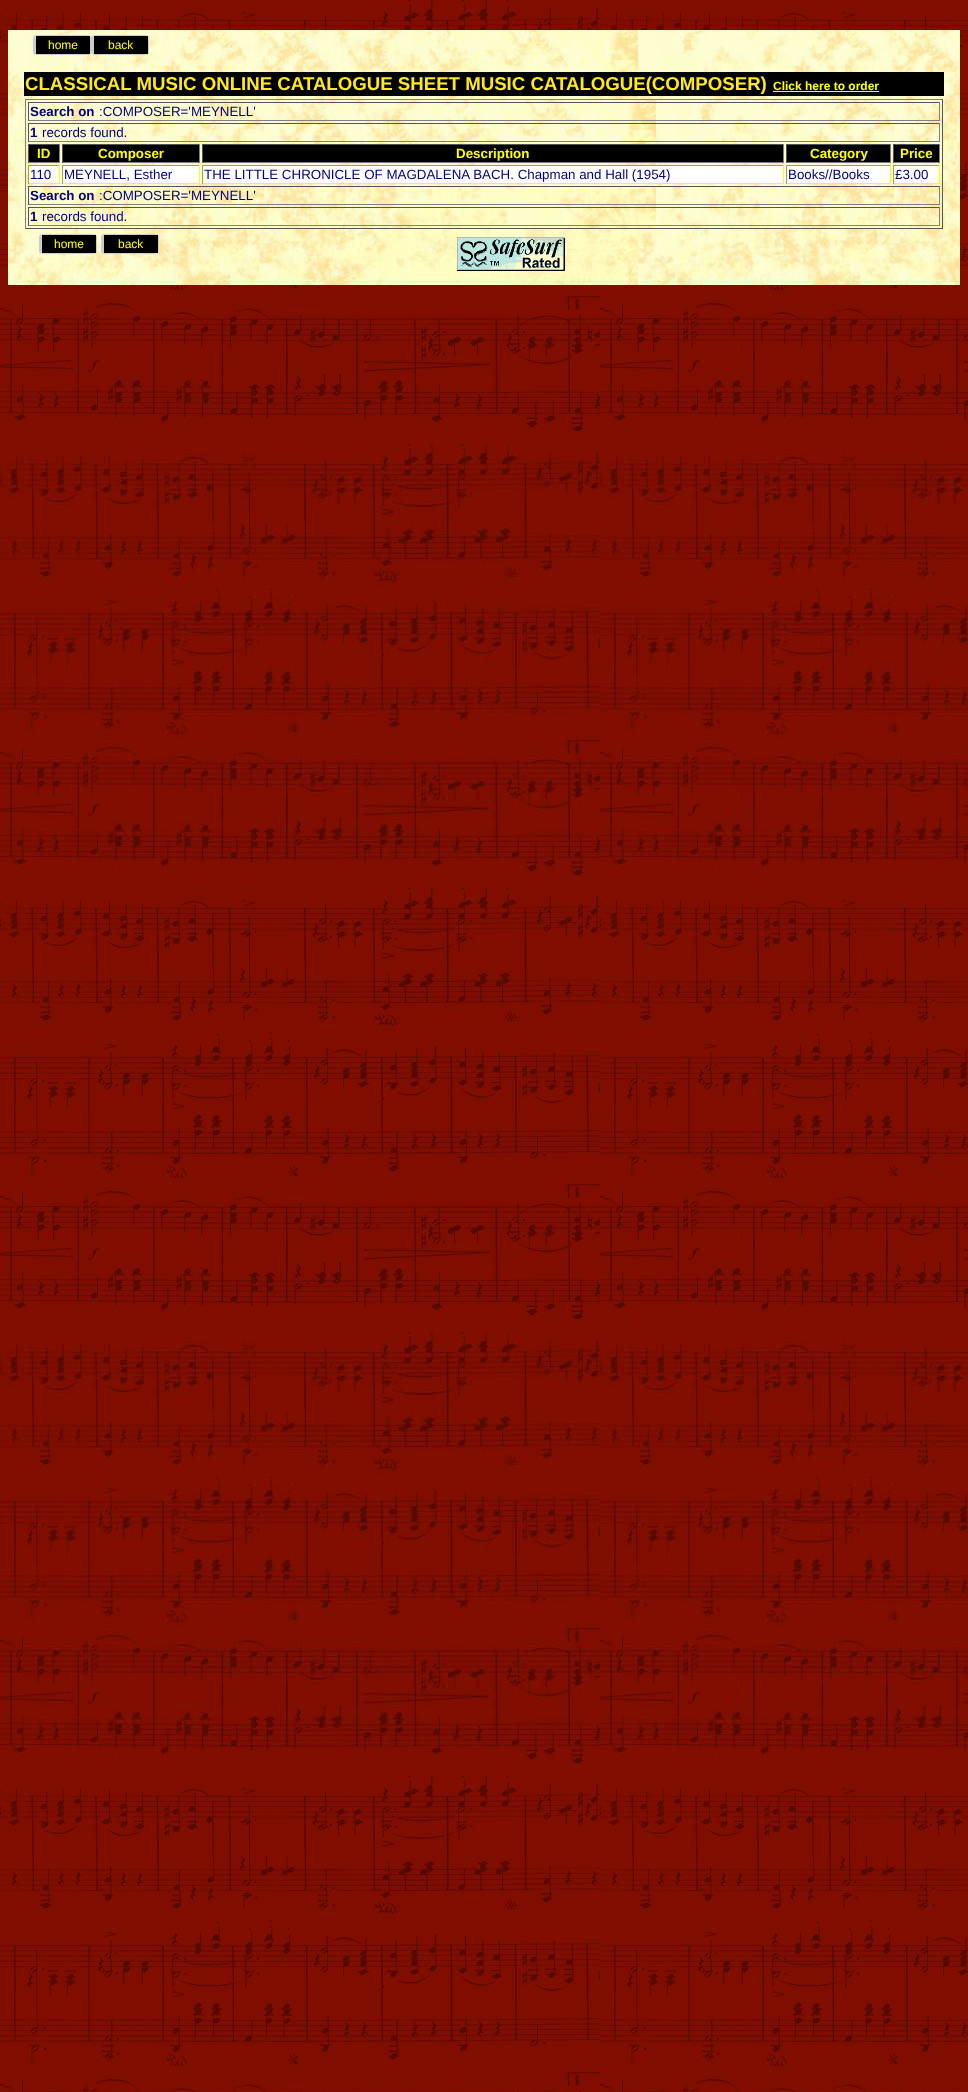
(async () => {
  const canvas = document.querySelector("canvas");
  canvas.width = 968;
  canvas.height = 2092;
  const ctx = canvas.getContext("2d");
  ctx.miterLimit = 4;
  ctx.fontKerning = "normal";
  async function loadImage(src) {
    const img = new Image();
    img.src = src;
    await img.decode();
    return img;
  }
  let path;

  ctx.fillStyle = "#ffffff";
  ctx.fillRect(0, 0, 968, 2092);
  ctx.drawImage(await loadImage("img/1.png"), 0, 0, 968, 2092);
  ctx.drawImage(await loadImage("img/2.png"), 8, 30, 952, 255);
  path = new Path2D("M39 35.5H85C88 35.5 90.5 36 90.5 37V53C90.5 54 88 54.5 85 54.5H39C36 54.5 33.5 54 33.5 53V37C33.5 36 36 35.5 39 35.5Z");
  ctx.strokeStyle = "#cccccc";
  ctx.stroke(path);
  ctx.fillStyle = "#cccccc";
  ctx.fillRect(34, 36, 2, 18);
  ctx.fillStyle = "#000000";
  ctx.fillRect(36, 36, 54, 18);
  path = new Path2D("M97 35.5H143C146 35.5 148.5 36 148.5 37V53C148.5 54 146 54.5 143 54.5H97C94 54.5 91.5 54 91.5 53V37C91.5 36 94 35.5 97 35.5Z");
  ctx.stroke(path);
  for (const [x, y, w, h, color] of [
    [92, 36, 2, 18, "#cccccc"],
    [94, 36, 54, 18, "#000000"],
    [24, 72, 920, 24, "#000000"],
    [773, 91, 106, 1, "#ffff00"],
  ]) {
    ctx.fillStyle = color;
    ctx.fillRect(x, y, w, h);
  }
  ctx.drawImage(await loadImage("img/3.png"), 26, 100, 916, 128);
  for (const [x, y, w, h, color] of [
    [25, 99, 918, 1, "#808080"],
    [942, 99, 1, 130, "#555555"],
    [25, 228, 918, 1, "#555555"],
    [25, 99, 1, 130, "#808080"],
    [28, 102, 912, 1, "#555555"],
    [939, 102, 1, 19, "#808080"],
    [28, 120, 912, 1, "#808080"],
    [28, 102, 1, 19, "#555555"],
    [28, 123, 912, 1, "#555555"],
    [939, 123, 1, 19, "#808080"],
    [28, 141, 912, 1, "#808080"],
    [28, 123, 1, 19, "#555555"],
    [29, 145, 30, 17, "#000000"],
    [28, 144, 32, 1, "#555555"],
    [59, 144, 1, 19, "#808080"],
    [28, 162, 32, 1, "#808080"],
    [28, 144, 1, 19, "#555555"],
    [63, 145, 136, 17, "#000000"],
    [62, 144, 138, 1, "#555555"],
    [199, 144, 1, 19, "#808080"],
    [62, 162, 138, 1, "#808080"],
    [62, 144, 1, 19, "#555555"],
    [203, 145, 580, 17, "#000000"],
    [202, 144, 582, 1, "#555555"],
    [783, 144, 1, 19, "#808080"],
    [202, 162, 582, 1, "#808080"],
    [202, 144, 1, 19, "#555555"],
    [787, 145, 103, 17, "#000000"],
    [786, 144, 105, 1, "#555555"],
    [890, 144, 1, 19, "#808080"],
    [786, 162, 105, 1, "#808080"],
    [786, 144, 1, 19, "#555555"],
    [894, 145, 45, 17, "#000000"],
    [893, 144, 47, 1, "#555555"],
    [939, 144, 1, 19, "#808080"],
    [893, 162, 47, 1, "#808080"],
    [893, 144, 1, 19, "#555555"],
    [29, 165, 910, 19, "#ffffff"],
    [28, 165, 32, 1, "#aaaa00"],
    [59, 165, 1, 19, "#ffff00"],
    [28, 183, 32, 1, "#ffff00"],
    [28, 165, 1, 19, "#aaaa00"],
    [62, 165, 138, 1, "#aaaa00"],
    [199, 165, 1, 19, "#ffff00"],
    [62, 183, 138, 1, "#ffff00"],
    [62, 165, 1, 19, "#aaaa00"],
    [202, 165, 582, 1, "#aaaa00"],
    [783, 165, 1, 19, "#ffff00"],
    [202, 183, 582, 1, "#ffff00"],
    [202, 165, 1, 19, "#aaaa00"],
    [786, 165, 105, 1, "#aaaa00"],
    [890, 165, 1, 19, "#ffff00"],
    [786, 183, 105, 1, "#ffff00"],
    [786, 165, 1, 19, "#aaaa00"],
    [893, 165, 47, 1, "#aaaa00"],
    [939, 165, 1, 19, "#ffff00"],
    [893, 183, 47, 1, "#ffff00"],
    [893, 165, 1, 19, "#aaaa00"],
    [28, 186, 912, 1, "#555555"],
    [939, 186, 1, 19, "#808080"],
    [28, 204, 912, 1, "#808080"],
    [28, 186, 1, 19, "#555555"],
    [28, 207, 912, 1, "#555555"],
    [939, 207, 1, 19, "#808080"],
    [28, 225, 912, 1, "#808080"],
    [28, 207, 1, 19, "#555555"],
  ]) {
    ctx.fillStyle = color;
    ctx.fillRect(x, y, w, h);
  }
  path = new Path2D("M45 234.5H91C94 234.5 96.5 235 96.5 236V252C96.5 253 94 253.5 91 253.5H45C42 253.5 39.5 253 39.5 252V236C39.5 235 42 234.5 45 234.5Z");
  ctx.stroke(path);
  ctx.fillStyle = "#cccccc";
  ctx.fillRect(40, 235, 2, 18);
  ctx.fillStyle = "#000000";
  ctx.fillRect(42, 235, 54, 18);
  path = new Path2D("M107 234.5H153C156 234.5 158.5 235 158.5 236V252C158.5 253 156 253.5 153 253.5H107C104 253.5 101.5 253 101.5 252V236C101.5 235 104 234.5 107 234.5Z");
  ctx.stroke(path);
  ctx.fillStyle = "#cccccc";
  ctx.fillRect(102, 235, 2, 18);
  ctx.fillStyle = "#000000";
  ctx.fillRect(104, 235, 54, 18);
  ctx.drawImage(await loadImage("img/4.png"), 457, 237, 108, 34);
  ctx.font = "12px Liberation Sans";
  ctx.fillStyle = "#ffff00";
  ctx.fillText("home", 48, 49);
  ctx.fillText("back", 108, 49);
  ctx.font = "bold 18.65px Liberation Sans";
  ctx.fillStyle = "#ffea18";
  ctx.fillText("CLASSICAL MUSIC ONLINE CATALOGUE SHEET MUSIC CATALOGUE(COMPOSER)", 25, 90);
  ctx.font = "bold 12px Liberation Sans";
  ctx.fillStyle = "#ffff00";
  ctx.fillText("Click here to order", 773, 90);
  ctx.font = "bold 13.35px Liberation Sans";
  ctx.fillStyle = "#000080";
  ctx.fillText("Search on", 30, 116);
  ctx.font = "13.35px Liberation Sans";
  ctx.fillText(":COMPOSER='MEYNELL'", 99, 116);
  ctx.font = "bold 13.35px Liberation Sans";
  ctx.fillText("1", 30, 137);
  ctx.font = "13.35px Liberation Sans";
  ctx.fillText("records found.", 42, 137);
  ctx.font = "bold 13.35px Liberation Sans";
  ctx.fillStyle = "#ffff00";
  for (const [text, x, y] of [
    ["ID", 37, 158],
    ["Composer", 98, 158],
    ["Description", 456, 158],
    ["Category", 810, 158],
    ["Price", 900, 158],
  ]) {
    ctx.fillText(text, x, y);
  }
  ctx.font = "13.35px Liberation Sans";
  ctx.fillStyle = "#000080";
  for (const [text, x, y] of [
    ["110", 30, 179],
    ["MEYNELL, Esther", 64, 179],
    ["THE LITTLE CHRONICLE OF MAGDALENA BACH. Chapman and Hall (1954)", 204, 179],
    ["Books//Books", 788, 179],
    ["£3.00", 895, 179],
  ]) {
    ctx.fillText(text, x, y);
  }
  ctx.font = "bold 13.35px Liberation Sans";
  ctx.fillText("Search on", 30, 200);
  ctx.font = "13.35px Liberation Sans";
  ctx.fillText(":COMPOSER='MEYNELL'", 99, 200);
  ctx.font = "bold 13.35px Liberation Sans";
  ctx.fillText("1", 30, 221);
  ctx.font = "13.35px Liberation Sans";
  ctx.fillText("records found.", 42, 221);
  ctx.font = "12px Liberation Sans";
  ctx.fillStyle = "#ffff00";
  ctx.fillText("home", 54, 248);
  ctx.fillText("back", 118, 248);
})();
